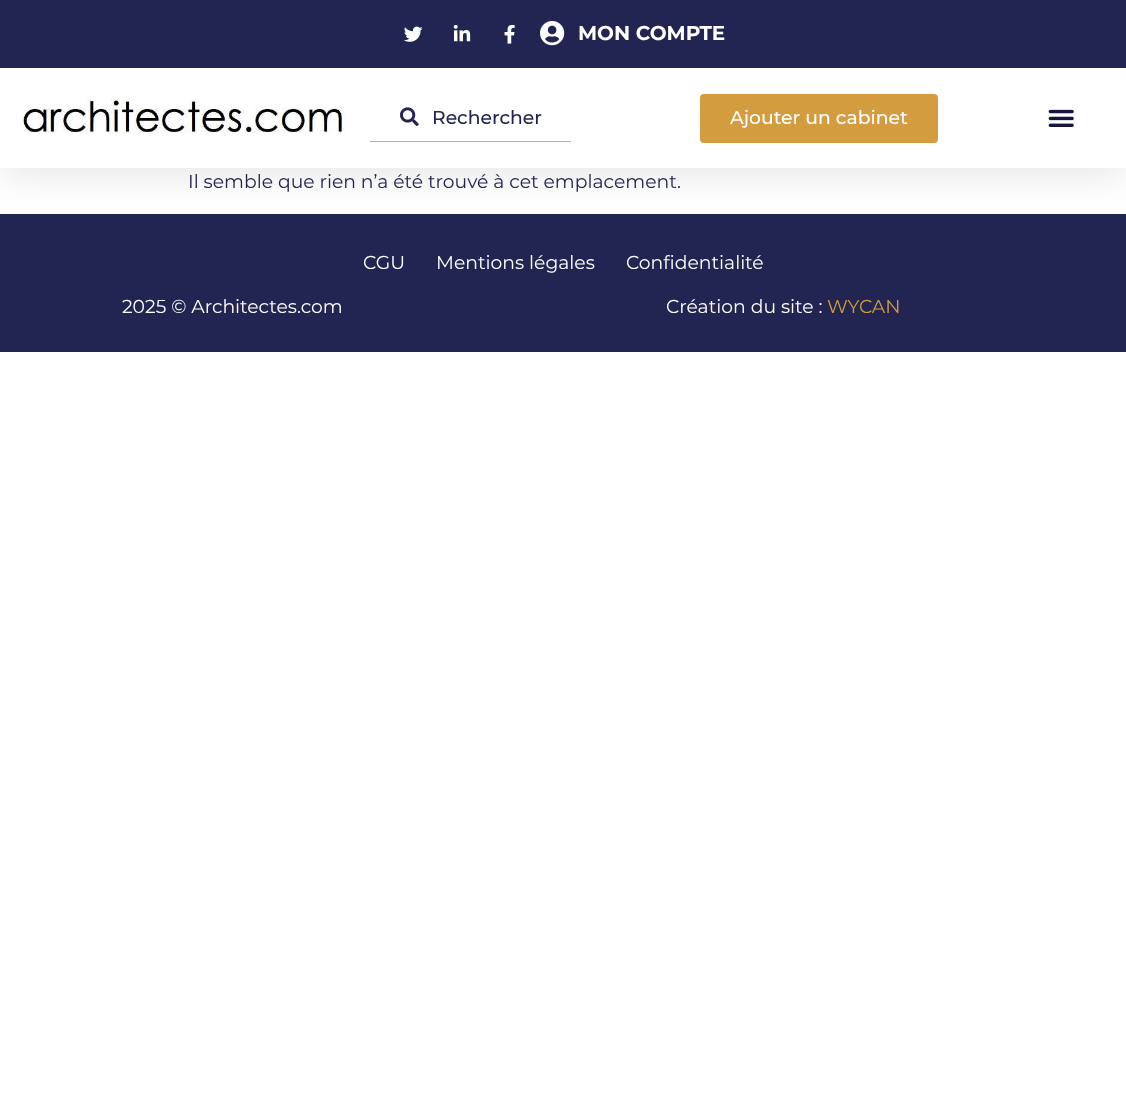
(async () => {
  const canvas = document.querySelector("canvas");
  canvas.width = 1126;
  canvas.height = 1102;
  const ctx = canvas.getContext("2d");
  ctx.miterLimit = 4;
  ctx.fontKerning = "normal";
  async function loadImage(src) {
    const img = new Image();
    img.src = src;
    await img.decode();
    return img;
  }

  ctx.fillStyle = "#ffffff";
  ctx.fillRect(0, 0, 1126, 1102);
  ctx.fillStyle = "#222551";
  ctx.fillRect(0, 214, 1126, 138);
  ctx.fillStyle = "rgba(0, 0, 0, 0.1)";
  ctx.filter = "blur(19px)";
  ctx.beginPath();
  ctx.rect(0, 6, 1126, 168);
  ctx.fill();
  ctx.filter = "none";
  ctx.fillStyle = "#222551";
  ctx.fillRect(0, 0, 1126, 68);
  ctx.drawImage(await loadImage("img/1.png"), 404, 26, 19, 16);
  ctx.drawImage(await loadImage("img/2.png"), 453, 25, 18, 17);
  ctx.drawImage(await loadImage("img/3.png"), 504, 25, 11, 19);
  ctx.drawImage(await loadImage("img/4.png"), 540, 21, 25, 25);
  ctx.fillStyle = "#ffffff";
  ctx.fillRect(0, 68, 1126, 100);
  ctx.drawImage(await loadImage("img/5.png"), 19, 98, 326, 35);
  ctx.fillStyle = "#afb1c0";
  ctx.fillRect(370, 141, 201, 1);
  ctx.drawImage(await loadImage("img/6.png"), 400, 107, 19, 19);
  ctx.fillStyle = "#d39c3f";
  ctx.beginPath();
  ctx.roundRect(700, 94, 238, 49, 4);
  ctx.fill();
  ctx.drawImage(await loadImage("img/7.png"), 1048, 109, 26, 18);
  ctx.font = "bold 20px Montserrat";
  ctx.fillStyle = "#ffffff";
  ctx.fillText("MON COMPTE", 578, 40);
  ctx.font = "500 18.75px Montserrat";
  ctx.fillStyle = "#222551";
  ctx.fillText("Rechercher", 432, 124);
  ctx.fillStyle = "#ffffff";
  ctx.fillText("Ajouter un cabinet", 730, 124);
  ctx.font = "18.75px Montserrat";
  ctx.fillStyle = "#222551";
  ctx.fillText("Il semble que rien n’a été trouvé à cet emplacement.", 188, 188);
  ctx.fillStyle = "#ffffff";
  for (const [text, x, y] of [
    ["CGU", 363, 269],
    ["Mentions légales", 436, 269],
    ["Confidentialité", 626, 269],
    ["2025 © Architectes.com", 122, 313],
    ["Création du site :", 666, 313],
  ]) {
    ctx.fillText(text, x, y);
  }
  ctx.fillStyle = "#d39c3f";
  ctx.fillText("WYCAN", 827, 313);
})();
